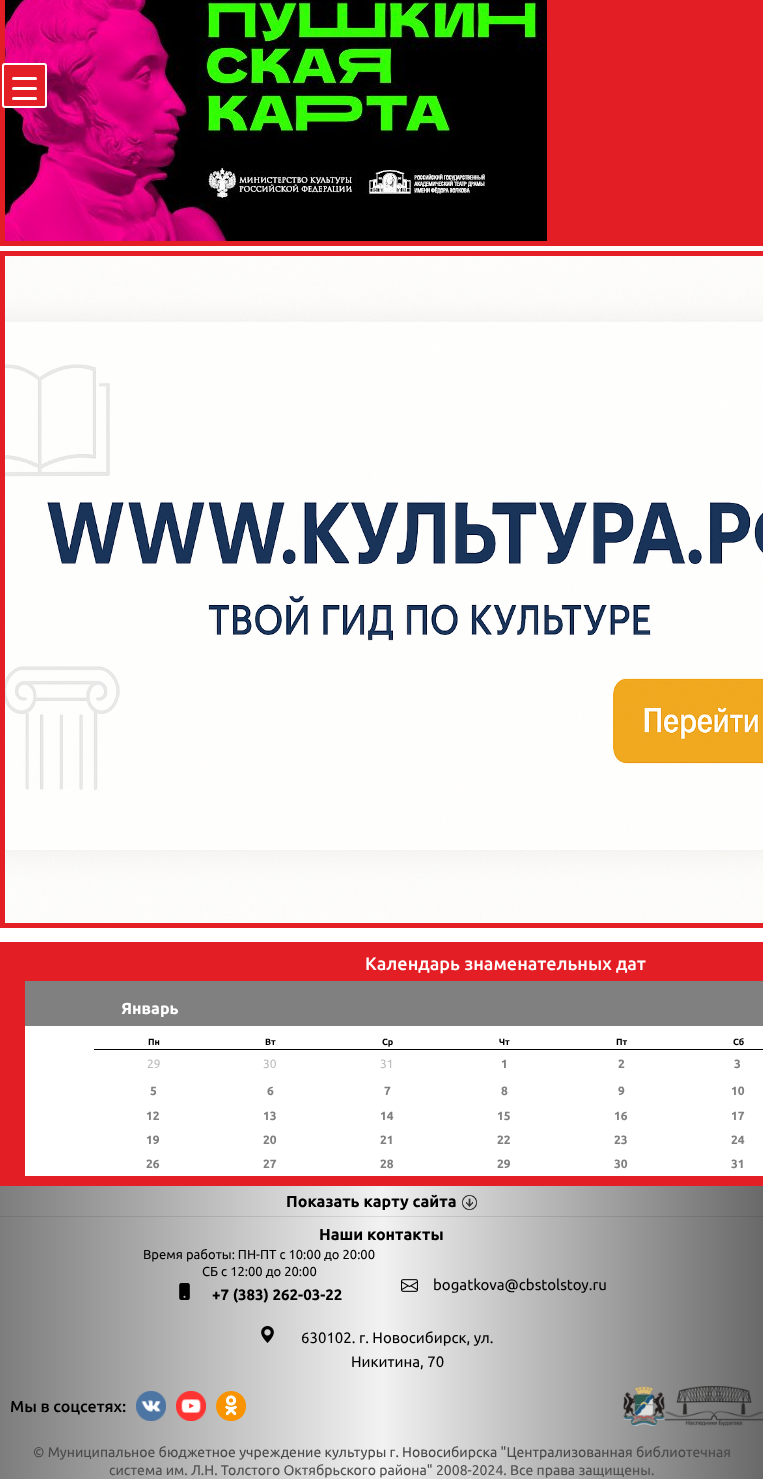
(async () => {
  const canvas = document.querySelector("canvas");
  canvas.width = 763;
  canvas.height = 1479;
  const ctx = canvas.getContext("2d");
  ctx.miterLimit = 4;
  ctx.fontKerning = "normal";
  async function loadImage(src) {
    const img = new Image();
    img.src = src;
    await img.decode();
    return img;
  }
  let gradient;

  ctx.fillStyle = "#ffffff";
  ctx.fillRect(0, 0, 763, 1479);
  ctx.fillStyle = "#e31e24";
  ctx.fillRect(0, 0, 763, 246);
  ctx.drawImage(await loadImage("img/1.png"), 5, 0, 542, 241);
  ctx.beginPath();
  ctx.roundRect(3, 64, 43, 43, 2);
  ctx.fill();
  ctx.strokeStyle = "#ffffff";
  ctx.lineWidth = 2;
  ctx.stroke();
  ctx.fillStyle = "#ffffff";
  ctx.beginPath();
  ctx.roundRect(12, 87, 25, 3, 1.5);
  ctx.fill();
  ctx.beginPath();
  ctx.roundRect(12, 77, 25, 3, 1.5);
  ctx.fill();
  ctx.beginPath();
  ctx.roundRect(12, 97, 25, 3, 1.5);
  ctx.fill();
  ctx.fillStyle = "#e31e24";
  ctx.fillRect(0, 251, 763, 677);
  ctx.drawImage(await loadImage("img/2.png"), 5, 256, 758, 667);
  for (const [x, y, w, h, color] of [
    [0, 942, 763, 244, "#e31e24"],
    [25, 1026, 738, 150, "#ffffff"],
    [25, 981, 738, 45, "#808080"],
    [94, 1049, 669, 1, "#000000"],
  ]) {
    ctx.fillStyle = color;
    ctx.fillRect(x, y, w, h);
  }
  gradient = ctx.createLinearGradient(0, 1333, 763, 1333);
  gradient.addColorStop(0, "#7d7d7d");
  gradient.addColorStop(0.5, "#f2f2f2");
  gradient.addColorStop(1, "#696969");
  ctx.fillStyle = gradient;
  ctx.fillRect(0, 1186, 763, 293);
  gradient = ctx.createLinearGradient(0, 1333, 763, 1333);
  gradient.addColorStop(0, "#717171");
  gradient.addColorStop(0.5, "#dadada");
  gradient.addColorStop(1, "#5f5f5f");
  ctx.fillStyle = gradient;
  ctx.fillRect(0, 1216, 763, 1);
  ctx.drawImage(await loadImage("img/3.png"), 462, 1195, 15, 15);
  ctx.drawImage(await loadImage("img/4.png"), 179, 1283, 11, 17);
  ctx.drawImage(await loadImage("img/5.png"), 401, 1279, 17, 13);
  ctx.drawImage(await loadImage("img/6.png"), 261, 1326, 13, 17);
  ctx.drawImage(await loadImage("img/7.png"), 136, 1391, 30, 30);
  ctx.drawImage(await loadImage("img/8.png"), 176, 1391, 30, 30);
  ctx.drawImage(await loadImage("img/9.png"), 216, 1391, 30, 30);
  ctx.drawImage(await loadImage("img/10.png"), 623, 1386, 42, 40);
  ctx.drawImage(await loadImage("img/11.png"), 665, 1386, 98, 40);
  ctx.font = "500 18px Ubuntu";
  ctx.fillStyle = "#ffffff";
  ctx.fillText("Календарь знаменательных дат", 365, 970);
  ctx.font = "bold 16px Ubuntu";
  ctx.fillText("Январь", 121, 1014);
  ctx.font = "bold 9px Ubuntu";
  ctx.fillStyle = "#000000";
  for (const [text, x, y] of [
    ["Пн", 148, 1045],
    ["Вт", 265, 1045],
    ["Ср", 382, 1045],
    ["Чт", 499, 1045],
    ["Пт", 616, 1045],
    ["Сб", 733, 1045],
  ]) {
    ctx.fillText(text, x, y);
  }
  ctx.font = "12px Ubuntu";
  ctx.fillStyle = "#bbbbbb";
  for (const [text, x, y] of [
    ["29", 147, 1068],
    ["30", 263, 1068],
    ["31", 380, 1068],
  ]) {
    ctx.fillText(text, x, y);
  }
  ctx.font = "bold 12px Ubuntu";
  ctx.fillStyle = "#808080";
  for (const [text, x, y] of [
    ["1", 501, 1068],
    ["2", 618, 1068],
    ["3", 734, 1068],
    ["5", 150, 1095],
    ["6", 267, 1095],
    ["7", 384, 1095],
    ["8", 501, 1095],
    ["9", 618, 1095],
    ["10", 731, 1095],
    ["12", 146, 1120],
    ["13", 263, 1120],
    ["14", 380, 1120],
    ["15", 497, 1120],
    ["16", 614, 1120],
    ["17", 731, 1120],
    ["19", 146, 1144],
    ["20", 263, 1144],
    ["21", 380, 1144],
    ["22", 497, 1144],
    ["23", 614, 1144],
    ["24", 731, 1144],
    ["26", 146, 1168],
    ["27", 263, 1168],
    ["28", 380, 1168],
    ["29", 497, 1168],
    ["30", 614, 1168],
    ["31", 731, 1168],
  ]) {
    ctx.fillText(text, x, y);
  }
  ctx.font = "bold 16px Ubuntu";
  ctx.fillStyle = "#000000";
  ctx.fillText("Показать карту сайта", 286, 1207);
  ctx.fillText("Наши контакты", 319, 1240);
  ctx.font = "13px Ubuntu";
  ctx.fillText("Время работы: ПН-ПТ с 10:00 до 20:00", 143, 1259);
  ctx.fillText("СБ с 12:00 до 20:00", 202, 1276);
  ctx.font = "bold 15px Ubuntu";
  ctx.fillText("+7 (383) 262-03-22", 212, 1300);
  ctx.font = "15px Ubuntu";
  for (const [text, x, y] of [
    ["bogatkova@cbstolstoy.ru", 433, 1290],
    ["630102. г. Новосибирск, ул.", 301, 1343],
    ["Никитина, 70", 351, 1367],
  ]) {
    ctx.fillText(text, x, y);
  }
  ctx.font = "500 16px Ubuntu";
  ctx.fillText("Мы в соцсетях:", 10, 1412);
  ctx.font = "14px Ubuntu";
  ctx.fillStyle = "#494949";
  ctx.fillText("© Муниципальное бюджетное учреждение культуры г. Новосибирска \"Централизованная библиотечная", 33, 1457);
  ctx.fillStyle = "#4f4f4f";
  ctx.fillText("система им. Л.Н. Толстого Октябрьского района\" 2008-2024. Все права защищены.", 109, 1475);
})();
